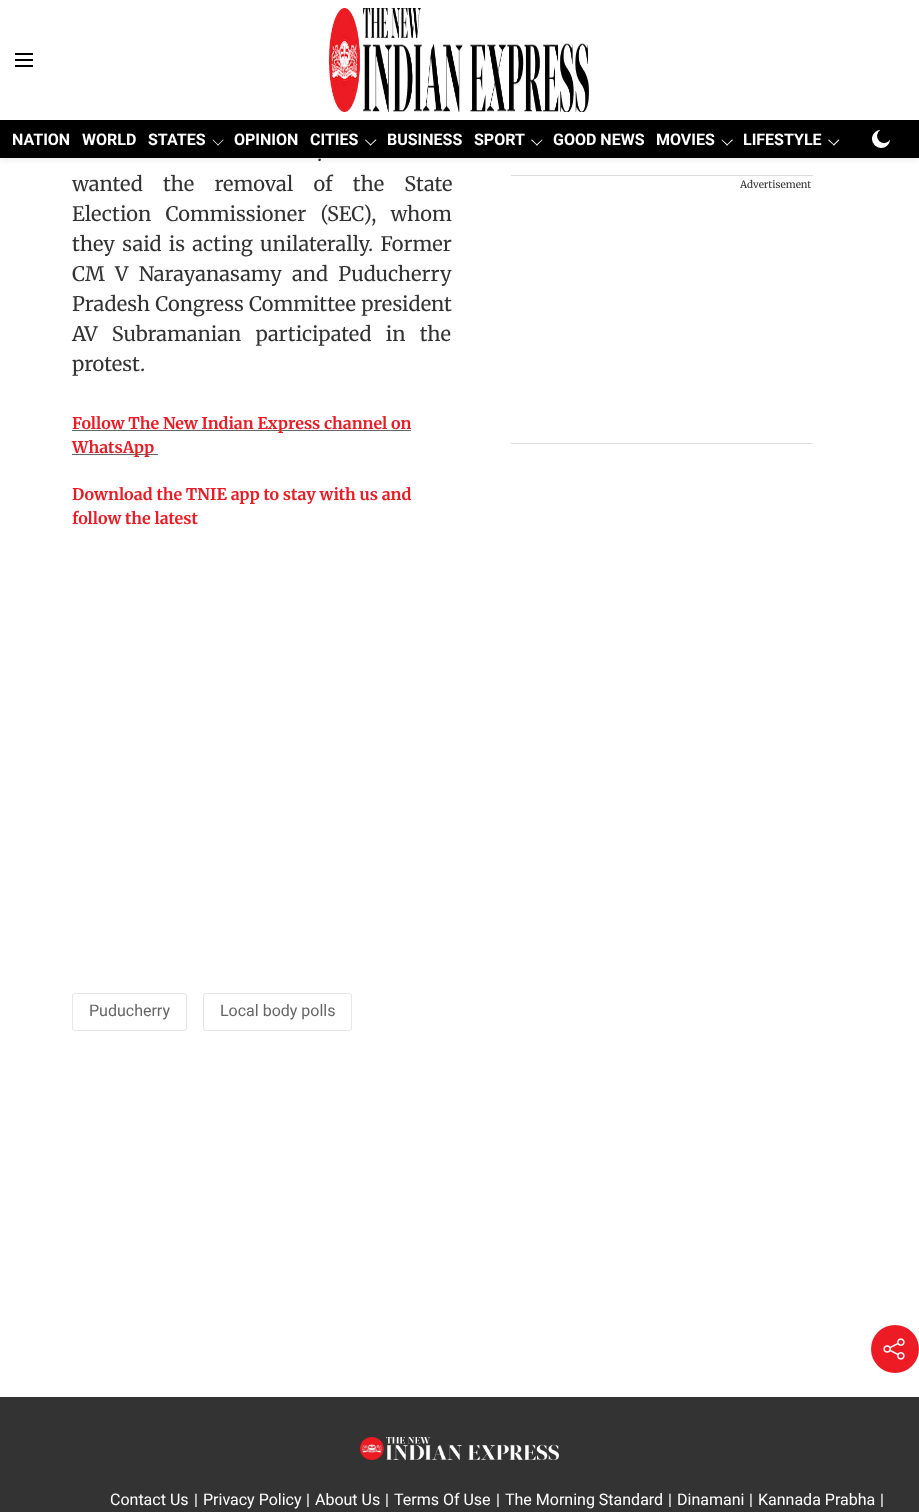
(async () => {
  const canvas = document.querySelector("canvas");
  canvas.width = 919;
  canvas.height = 1512;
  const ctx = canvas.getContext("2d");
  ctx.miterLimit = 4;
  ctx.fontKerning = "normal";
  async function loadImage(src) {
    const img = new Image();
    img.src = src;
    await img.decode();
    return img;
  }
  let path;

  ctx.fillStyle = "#ffffff";
  ctx.fillRect(0, 0, 919, 1512);
  ctx.fillStyle = "rgba(0, 0, 0, 0.1)";
  ctx.filter = "blur(3px)";
  ctx.beginPath();
  ctx.rect(0, 1, 919, 158);
  ctx.fill();
  ctx.filter = "none";
  ctx.fillStyle = "#ffffff";
  ctx.fillRect(0, 0, 919, 120);
  ctx.drawImage(await loadImage("img/1.png"), 15, 53, 18, 14);
  ctx.drawImage(await loadImage("img/2.png"), 329, 8, 260, 104);
  ctx.fillStyle = "#000000";
  ctx.fillRect(0, 120, 919, 38);
  ctx.fillStyle = "#ffffff";
  path = new Path2D("M223 139.5L223.5 140L218 145.5L217.5 145Z");
  ctx.fill(path);
  path = new Path2D("M213 139.5L218.5 145L218 145.5L212.5 140Z");
  ctx.fill(path);
  path = new Path2D("M375.5 139.5L376.5 140L370.5 145.5L370 145Z");
  ctx.fill(path);
  path = new Path2D("M365.5 139.5L371.5 145L370.5 145.5L365 140Z");
  ctx.fill(path);
  path = new Path2D("M542 139.5L542.5 140L537 145.5L536 145Z");
  ctx.fill(path);
  path = new Path2D("M532 139.5L537.5 145L537 145.5L531 140Z");
  ctx.fill(path);
  path = new Path2D("M732 139.5L733 140L727 145.5L726.5 145Z");
  ctx.fill(path);
  path = new Path2D("M722 139.5L728 145L727 145.5L721.5 140Z");
  ctx.fill(path);
  path = new Path2D("M838.5 139.5L839.5 140L834 145.5L833 145Z");
  ctx.fill(path);
  path = new Path2D("M829 139.5L834.5 145L834 145.5L828 140Z");
  ctx.fill(path);
  ctx.drawImage(await loadImage("img/3.png"), 872, 130, 18, 18);
  ctx.fillStyle = "#666666";
  ctx.fillRect(72, 430, 339, 1);
  ctx.fillRect(72, 454, 86, 1);
  ctx.beginPath();
  ctx.roundRect(72.5, 993.5, 114, 37, 2.5);
  ctx.strokeStyle = "#e6e6e6";
  ctx.stroke();
  ctx.beginPath();
  ctx.roundRect(203.5, 993.5, 148, 37, 2.5);
  ctx.stroke();
  ctx.fillStyle = "#ec1b24";
  ctx.beginPath();
  ctx.arc(895, 1349, 24, 0, Math.PI * 2);
  ctx.fill();
  ctx.drawImage(await loadImage("img/4.png"), 883, 1338, 22, 22);
  for (const [x, y, w, h, color] of [
    [511, 175, 302, 1, "#dddddd"],
    [511, 443, 302, 1, "#dddddd"],
    [0, 1397, 919, 115, "#333333"],
  ]) {
    ctx.fillStyle = color;
    ctx.fillRect(x, y, w, h);
  }
  ctx.drawImage(await loadImage("img/5.png"), 360, 1437, 199, 23);
  ctx.font = "bold 16px Roboto";
  ctx.fillStyle = "#ffffff";
  for (const [text, x, y] of [
    ["NATION", 12, 145],
    ["WORLD", 82, 145],
    ["STATES", 148, 145],
    ["OPINION", 234, 145],
    ["CITIES", 310, 145],
    ["BUSINESS", 387, 145],
    ["SPORT", 474, 145],
    ["GOOD NEWS", 553, 145],
    ["MOVIES", 656, 145],
    ["LIFESTYLE", 743, 145],
  ]) {
    ctx.fillText(text, x, y);
  }
  ctx.wordSpacing = "1px";
  ctx.font = "300 20px Merriweather";
  ctx.fillStyle = "#333333";
  ctx.fillText(".", 317, 161);
  ctx.wordSpacing = "15.5px";
  ctx.fillText("wanted the removal of the State", 72, 191);
  ctx.wordSpacing = "9.5px";
  ctx.fillText("Election Commissioner (SEC), whom", 72, 221);
  ctx.wordSpacing = "2.5px";
  ctx.fillText("they said is acting unilaterally. Former", 72, 251);
  ctx.wordSpacing = "5.5px";
  ctx.fillText("CM V Narayanasamy and Puducherry", 72, 281);
  ctx.wordSpacing = "0.5px";
  ctx.fillText("Pradesh Congress Committee president", 72, 311);
  ctx.wordSpacing = "9.5px";
  ctx.fillText("AV Subramanian participated in the", 72, 341);
  ctx.wordSpacing = "0px";
  ctx.fillText("protest.", 72, 371);
  ctx.font = "300 16px 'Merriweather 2'";
  ctx.fillStyle = "#ec1b24";
  for (const [text, x, y] of [
    ["Follow The New Indian Express channel on", 72, 429],
    ["WhatsApp", 72, 453],
    ["Download the TNIE app to stay with us and", 72, 500],
    ["follow the latest", 72, 524],
  ]) {
    ctx.fillText(text, x, y);
  }
  ctx.font = "16px Roboto";
  ctx.fillStyle = "#666666";
  ctx.fillText("Puducherry", 89, 1016);
  ctx.fillText("Local body polls", 220, 1016);
  ctx.font = "300 10px Merriweather";
  ctx.fillStyle = "#333333";
  ctx.fillText("Advertisement", 740, 188);
  ctx.font = "16px Roboto";
  ctx.fillStyle = "#ffffff";
  for (const [text, x, y] of [
    ["Contact Us", 110, 1505],
    ["|", 194, 1505],
    ["Privacy Policy", 203, 1505],
    ["|", 306, 1505],
    ["About Us", 315, 1505],
    ["|", 385, 1505],
    ["Terms Of Use", 394, 1505],
    ["|", 496, 1505],
    ["The Morning Standard", 505, 1505],
    ["|", 668, 1505],
    ["Dinamani", 677, 1505],
    ["|", 749, 1505],
    ["Kannada Prabha", 758, 1505],
    ["|", 880, 1505],
  ]) {
    ctx.fillText(text, x, y);
  }
})();
